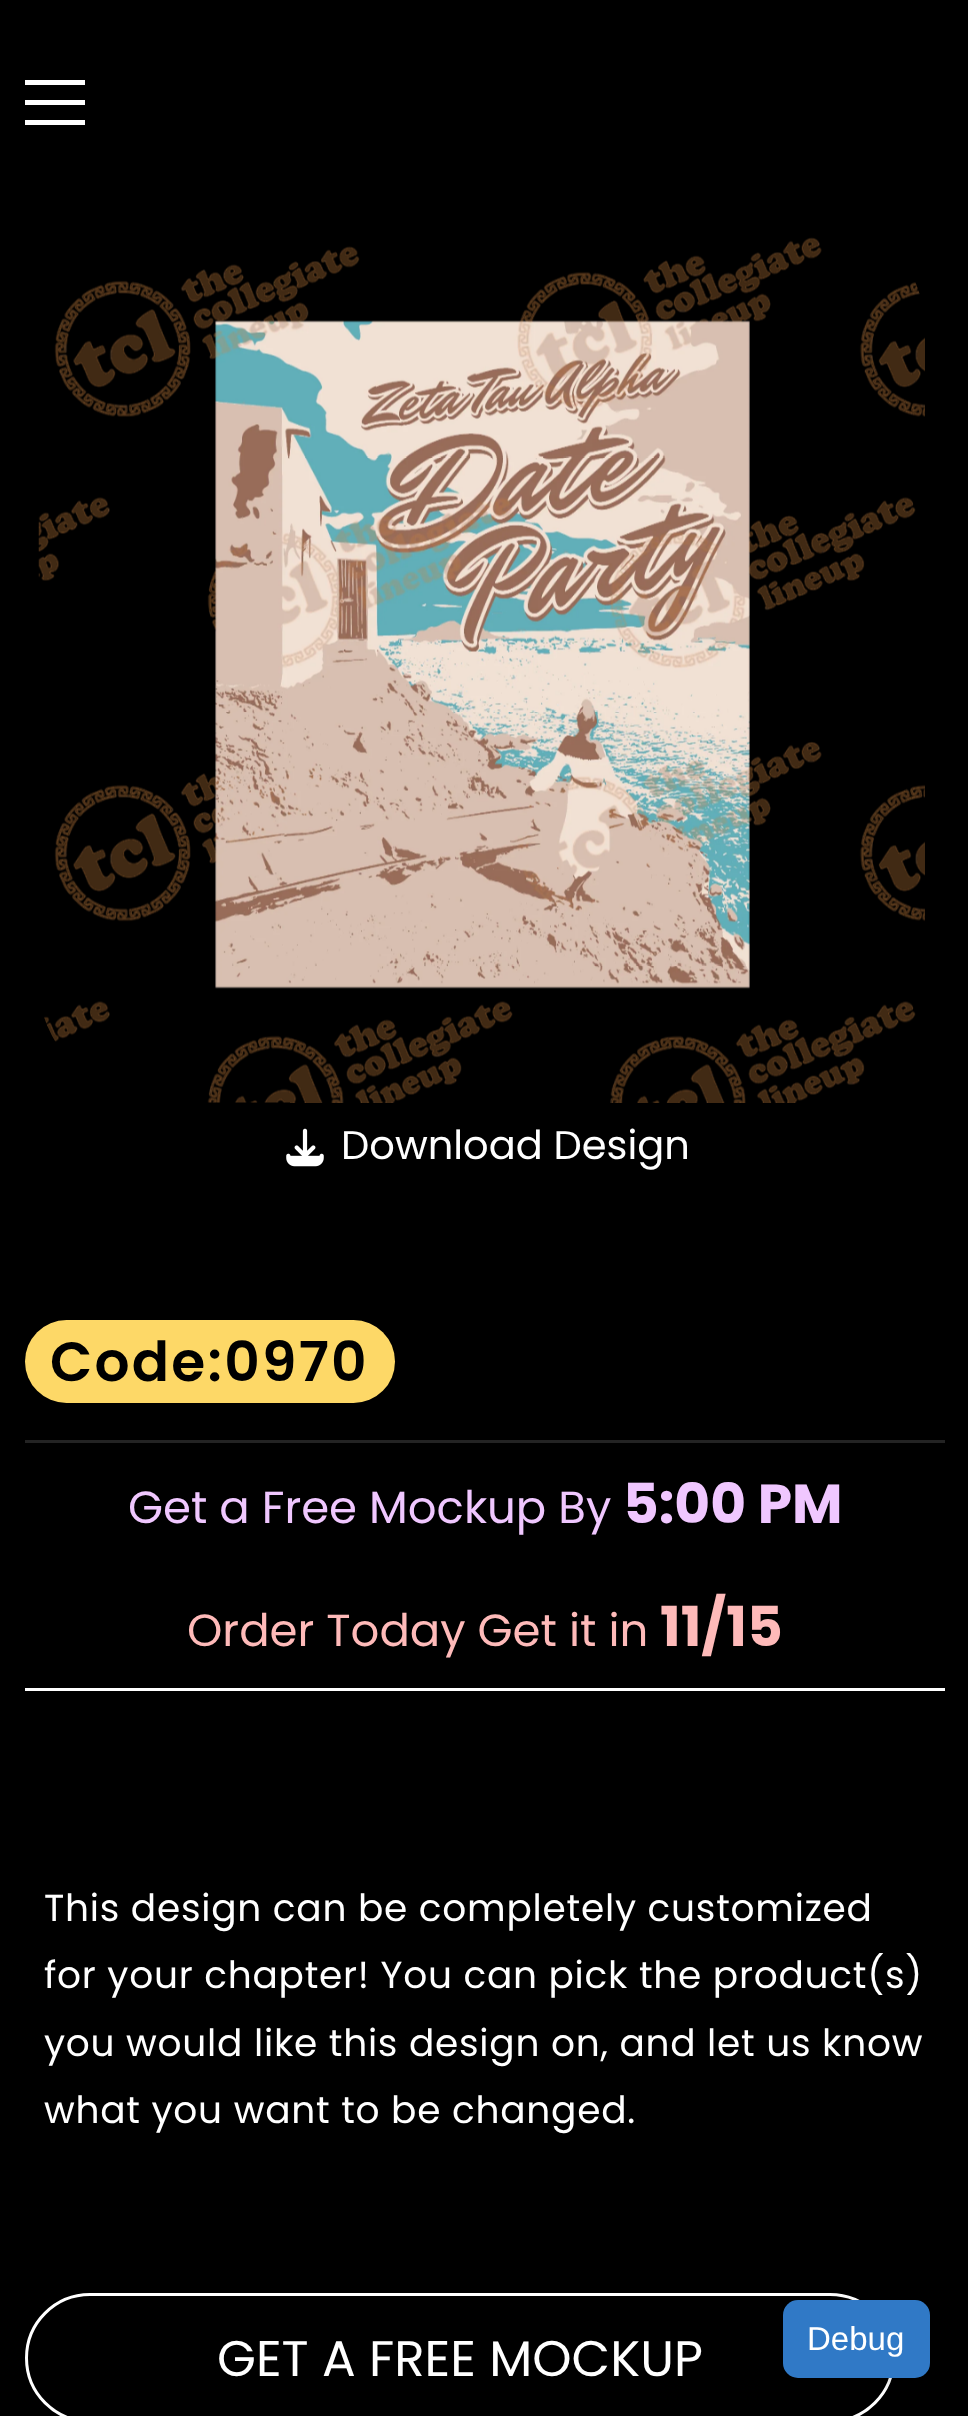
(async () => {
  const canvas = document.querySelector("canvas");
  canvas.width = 968;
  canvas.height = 2416;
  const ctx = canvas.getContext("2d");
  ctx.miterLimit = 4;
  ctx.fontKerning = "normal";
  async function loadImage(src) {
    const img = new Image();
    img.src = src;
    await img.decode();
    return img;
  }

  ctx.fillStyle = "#000000";
  ctx.fillRect(0, 0, 968, 2416);
  for (const [x, y, w, h, color] of [
    [25, 100, 60, 5, "#ffffff"],
    [25, 80, 60, 5, "#ffffff"],
    [25, 120, 60, 5, "#ffffff"],
  ]) {
    ctx.fillStyle = color;
    ctx.fillRect(x, y, w, h);
  }
  ctx.drawImage(await loadImage("img/1.png"), 38, 237, 887, 866);
  ctx.drawImage(await loadImage("img/2.png"), 286, 1128, 38, 39);
  ctx.fillRect(25, 1688, 920, 3);
  ctx.fillStyle = "#fdd867";
  ctx.beginPath();
  ctx.roundRect(25, 1320, 370, 83, 41.5);
  ctx.fill();
  ctx.fillStyle = "#232323";
  ctx.fillRect(25, 1440, 920, 3);
  ctx.beginPath();
  ctx.roundRect(26.5, 2294.5, 867, 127, 63.5);
  ctx.strokeStyle = "#ffffff";
  ctx.lineWidth = 3;
  ctx.stroke();
  ctx.fillStyle = "rgba(0, 0, 0, 0.12)";
  ctx.filter = "blur(7.5px)";
  ctx.beginPath();
  ctx.roundRect(783, 2305, 147, 78, 15);
  ctx.fill();
  ctx.filter = "none";
  ctx.fillStyle = "#3079c6";
  ctx.beginPath();
  ctx.roundRect(783, 2300, 147, 78, 15);
  ctx.fill();
  ctx.font = "40px Poppins";
  ctx.fillStyle = "#ffffff";
  ctx.fillText("Download Design", 341, 1159);
  ctx.letterSpacing = "2.25px";
  ctx.font = "600 55px Poppins";
  ctx.fillStyle = "#000000";
  ctx.fillText("Code:0970", 50, 1381);
  ctx.letterSpacing = "0px";
  ctx.font = "45px Poppins";
  ctx.fillStyle = "#f0c7ff";
  ctx.fillText("Get a Free Mockup By", 128, 1523);
  ctx.font = "bold 55px Poppins";
  ctx.fillText("5:00 PM", 623, 1523);
  ctx.font = "45px Poppins";
  ctx.fillStyle = "#febab9";
  ctx.fillText("Order Today Get it in", 187, 1646);
  ctx.font = "bold 55px Poppins";
  ctx.fillText("11/15", 660, 1646);
  ctx.letterSpacing = "0.75px";
  ctx.font = "37.5px Poppins";
  ctx.fillStyle = "#ffffff";
  for (const [text, x, y] of [
    ["This design can be completely customized", 44, 1921],
    ["for your chapter! You can pick the product(s)", 44, 1988],
    ["you would like this design on, and let us know", 44, 2056],
    ["what you want to be changed.", 44, 2123],
  ]) {
    ctx.fillText(text, x, y);
  }
  ctx.letterSpacing = "0px";
  ctx.font = "50px Poppins";
  ctx.fillText("GET A FREE MOCKUP", 217, 2376);
  ctx.font = "33px Liberation Sans";
  ctx.fillText("Debug", 807, 2350);
})();
